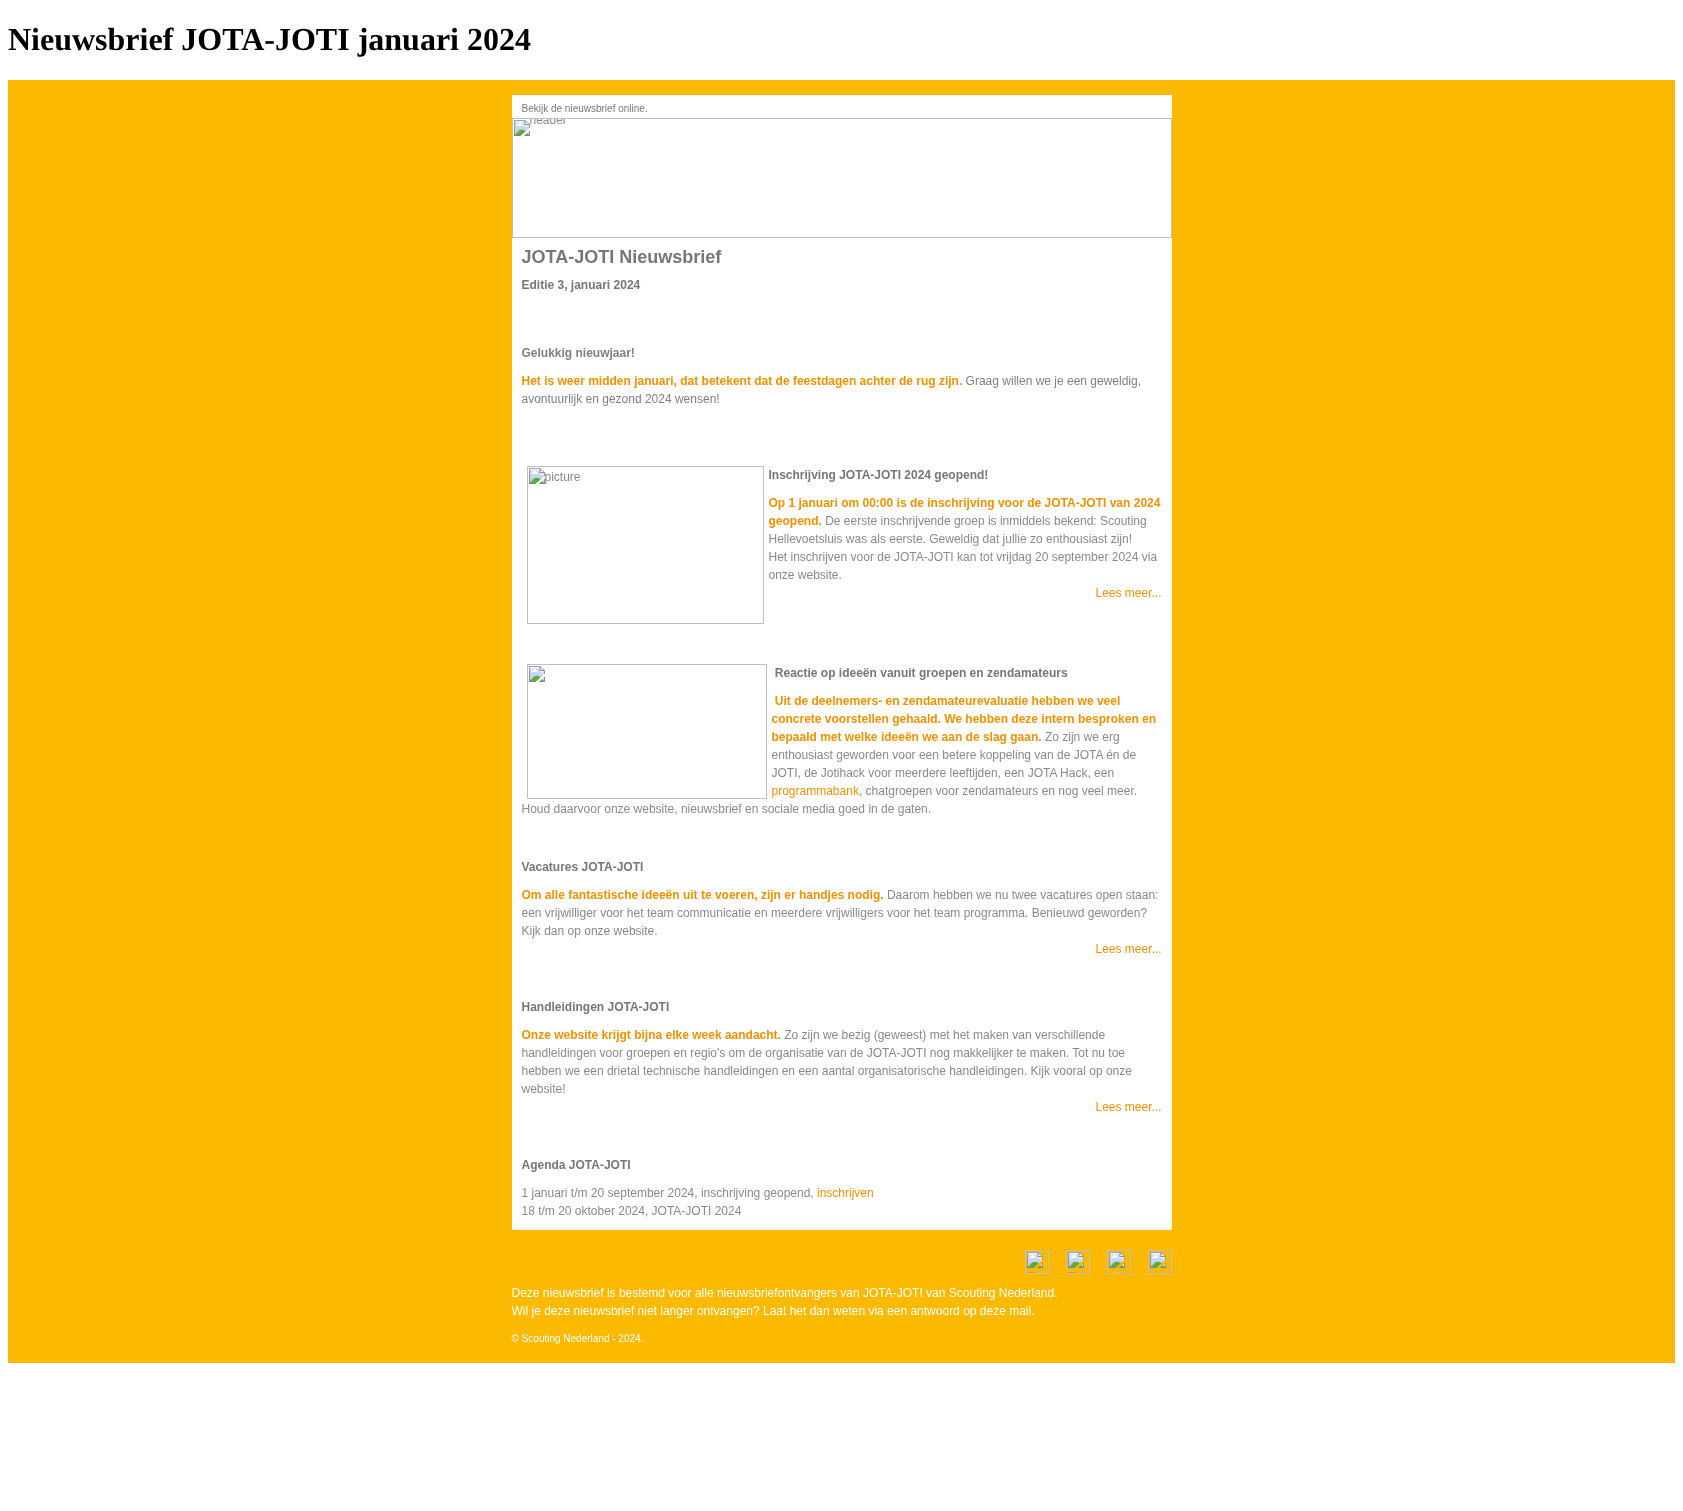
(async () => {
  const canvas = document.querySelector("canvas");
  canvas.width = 1683;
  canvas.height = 1511;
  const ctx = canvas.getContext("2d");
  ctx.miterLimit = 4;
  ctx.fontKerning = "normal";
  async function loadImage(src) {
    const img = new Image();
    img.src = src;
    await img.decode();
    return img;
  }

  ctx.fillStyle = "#ffffff";
  ctx.fillRect(0, 0, 1683, 1511);
  ctx.drawImage(await loadImage("img/1.png"), 8, 80, 1667, 1283);
  ctx.font = "bold 32px Liberation Serif";
  ctx.fillStyle = "#000000";
  ctx.fillText("Nieuwsbrief JOTA-JOTI januari 2024", 8, 50);
})();
